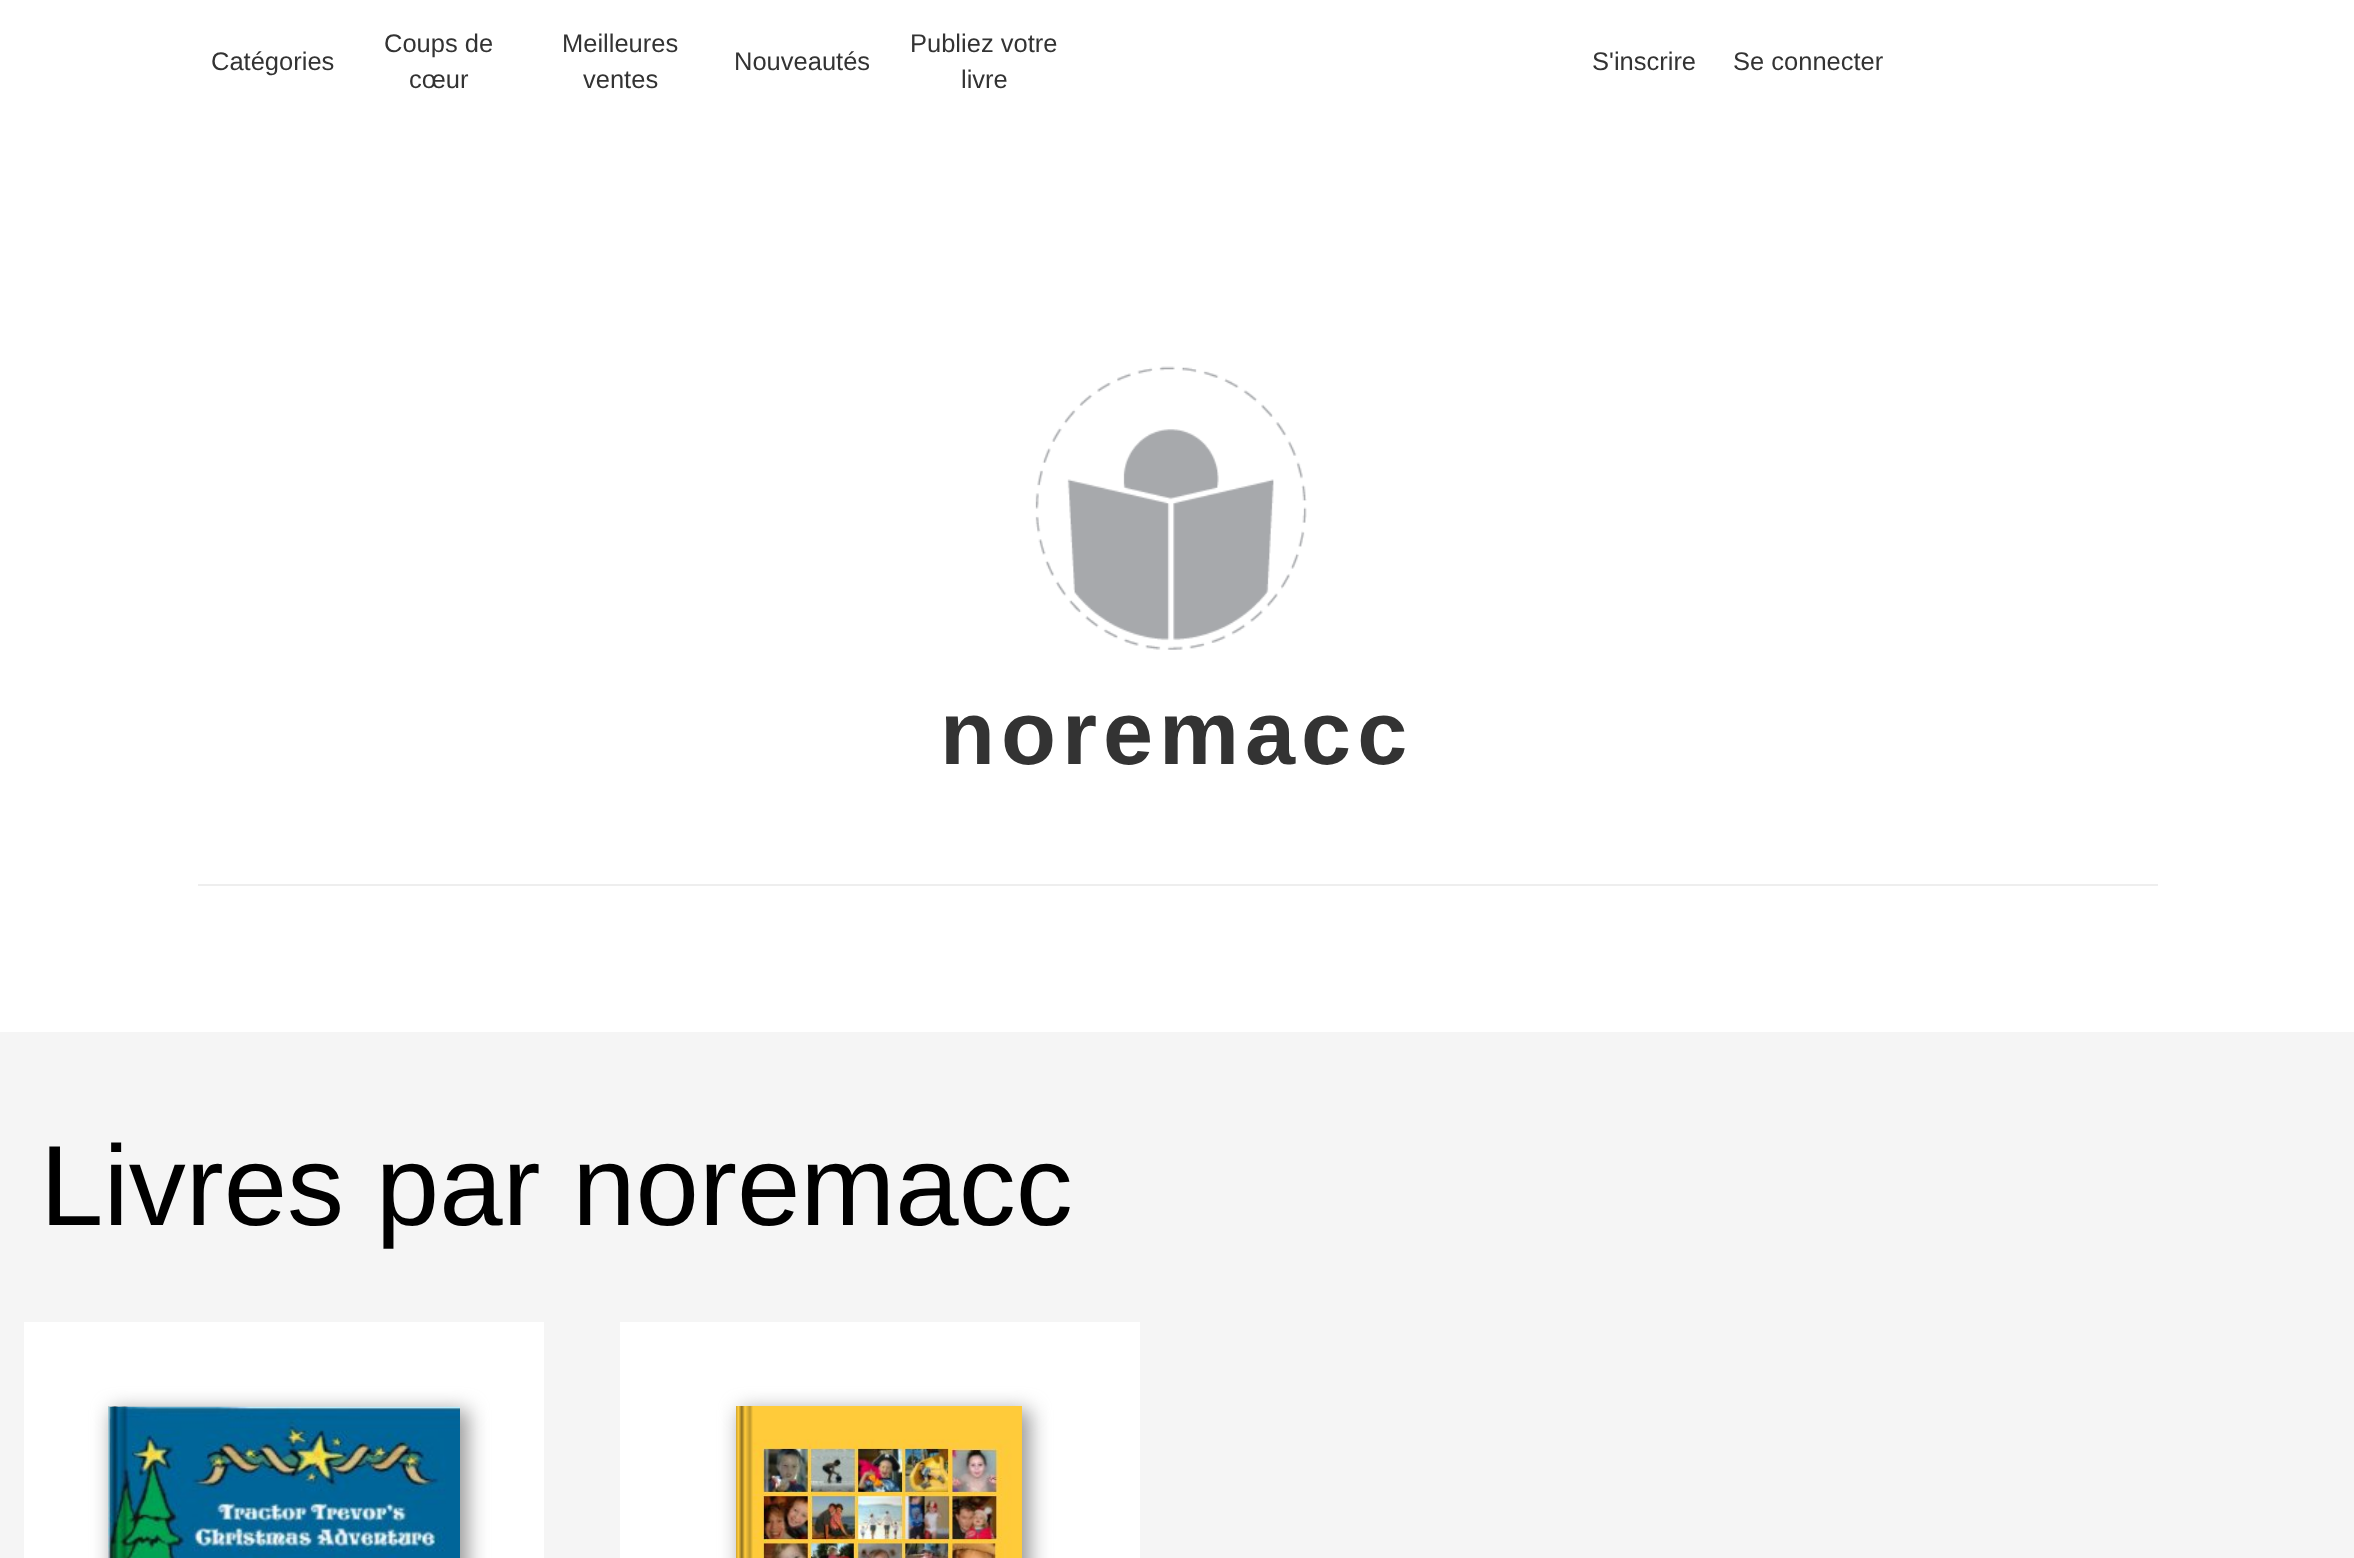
(async () => {
  const canvas = document.querySelector("canvas");
  canvas.width = 2354;
  canvas.height = 1558;
  const ctx = canvas.getContext("2d");
  ctx.miterLimit = 4;
  ctx.fontKerning = "normal";
  async function loadImage(src) {
    const img = new Image();
    img.src = src;
    await img.decode();
    return img;
  }
  let gradient;

  ctx.fillStyle = "#ffffff";
  ctx.fillRect(0, 0, 2354, 1558);
  ctx.drawImage(await loadImage("img/1.png"), 1035, 366, 272, 284);
  for (const [x, y, w, h, color] of [
    [198, 884, 1960, 2, "#eeeeee"],
    [0, 1032, 2354, 526, "#f5f5f5"],
    [24, 1322, 520, 236, "#ffffff"],
  ]) {
    ctx.fillStyle = color;
    ctx.fillRect(x, y, w, h);
  }
  ctx.fillStyle = "#999999";
  ctx.filter = "blur(10px)";
  ctx.beginPath();
  ctx.rect(112, 1410, 356, 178);
  ctx.fill();
  ctx.filter = "none";
  ctx.drawImage(await loadImage("img/2.png"), 108, 1406, 352, 152);
  gradient = ctx.createLinearGradient(108, 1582, 132, 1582);
  gradient.addColorStop(0, "rgba(0, 0, 0, 0.2)");
  gradient.addColorStop(0.12, "rgba(0, 0, 0, 0)");
  gradient.addColorStop(0.29, "rgba(0, 0, 0, 0.45)");
  gradient.addColorStop(0.45, "rgba(0, 0, 0, 0)");
  gradient.addColorStop(0.7, "rgba(0, 0, 0, 0.25)");
  gradient.addColorStop(0.85, "rgba(0, 0, 0, 0)");
  gradient.addColorStop(1, "rgba(0, 0, 0, 0)");
  ctx.fillStyle = gradient;
  ctx.fillRect(108, 1406, 20, 152);
  ctx.fillStyle = "#ffffff";
  ctx.fillRect(620, 1322, 520, 236);
  ctx.fillStyle = "#999999";
  ctx.filter = "blur(10px)";
  ctx.beginPath();
  ctx.rect(740, 1410, 290, 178);
  ctx.fill();
  ctx.filter = "none";
  ctx.drawImage(await loadImage("img/3.png"), 736, 1406, 286, 152);
  ctx.font = "25.5px Liberation Sans";
  ctx.fillStyle = "#333333";
  for (const [text, x, y] of [
    ["Catégories", 211, 70],
    ["Coups de", 384, 52],
    ["cœur", 409, 88],
    ["Meilleures", 562, 52],
    ["ventes", 583, 88],
    ["Nouveautés", 734, 70],
    ["Publiez votre", 910, 52],
    ["livre", 961, 88],
    ["S'inscrire", 1592, 70],
    ["Se connecter", 1733, 70],
  ]) {
    ctx.fillText(text, x, y);
  }
  ctx.letterSpacing = "6px";
  ctx.font = "bold 90px Liberation Sans";
  ctx.fillText("noremacc", 940, 764);
  ctx.letterSpacing = "0px";
  ctx.font = "114px Liberation Sans";
  ctx.fillStyle = "#000000";
  ctx.fillText("Livres par noremacc", 40, 1225);
})();
